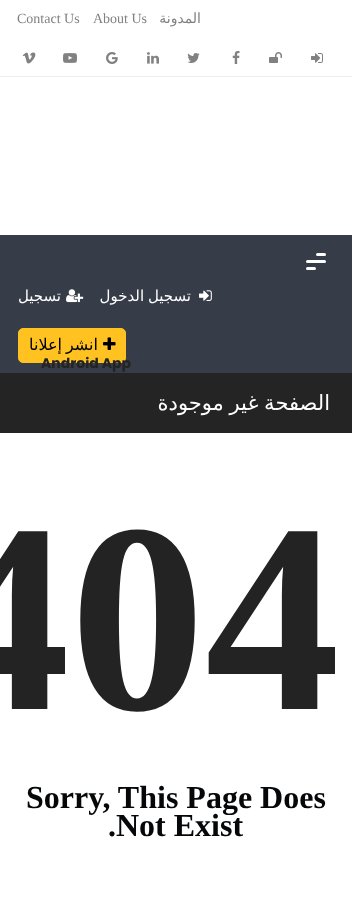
(async () => {
  const canvas = document.querySelector("canvas");
  canvas.width = 352;
  canvas.height = 924;
  const ctx = canvas.getContext("2d");
  ctx.miterLimit = 4;
  ctx.fontKerning = "normal";
  async function loadImage(src) {
    const img = new Image();
    img.src = src;
    await img.decode();
    return img;
  }

  ctx.fillStyle = "#ffffff";
  ctx.fillRect(0, 0, 352, 924);
  ctx.fillStyle = "#eeeeee";
  ctx.fillRect(0, 76, 352, 1);
  ctx.drawImage(await loadImage("img/1.png"), 22, 52, 14, 12);
  ctx.drawImage(await loadImage("img/2.png"), 63, 53, 14, 10);
  ctx.drawImage(await loadImage("img/3.png"), 106, 52, 12, 12);
  ctx.drawImage(await loadImage("img/4.png"), 147, 52, 12, 12);
  ctx.drawImage(await loadImage("img/5.png"), 187, 53, 13, 10);
  ctx.drawImage(await loadImage("img/6.png"), 232, 51, 8, 13);
  ctx.drawImage(await loadImage("img/7.png"), 269, 52, 13, 11);
  ctx.drawImage(await loadImage("img/8.png"), 311, 53, 12, 10);
  ctx.fillStyle = "#363c48";
  ctx.fillRect(0, 235, 352, 138);
  ctx.fillStyle = "#ffffff";
  ctx.beginPath();
  ctx.roundRect(316, 253, 10, 3, 1.5);
  ctx.fill();
  ctx.beginPath();
  ctx.roundRect(306, 260, 20, 3, 1.5);
  ctx.fill();
  ctx.beginPath();
  ctx.roundRect(306, 267, 10, 3, 1.5);
  ctx.fill();
  ctx.drawImage(await loadImage("img/9.png"), 66, 289, 18, 14);
  ctx.drawImage(await loadImage("img/10.png"), 199, 290, 13, 11);
  ctx.fillStyle = "#ffc220";
  ctx.beginPath();
  ctx.roundRect(18.5, 328.5, 107, 34, 4.5);
  ctx.fill();
  ctx.strokeStyle = "#ffc220";
  ctx.stroke();
  ctx.drawImage(await loadImage("img/11.png"), 103, 337, 13, 13);
  ctx.fillStyle = "#242424";
  ctx.fillRect(0, 373, 352, 60);
  ctx.font = "14px Liberation Serif";
  ctx.fillStyle = "#818181";
  ctx.fillText("Contact Us", 17, 23);
  ctx.fillText("About Us", 93, 23);
  ctx.direction = "rtl";
  ctx.font = "14px DejaVu Sans";
  ctx.fillText("المدونة", 201, 23);
  ctx.font = "15px DejaVu Sans";
  ctx.fillStyle = "#ffffff";
  ctx.fillText("تسجيل", 61, 301);
  ctx.wordSpacing = "-1px";
  ctx.fillText("تسجيل الدخول", 191, 301);
  ctx.font = "16px DejaVu Sans";
  ctx.fillStyle = "#000000";
  ctx.fillText("انشر إعلانا", 98, 350);
  ctx.wordSpacing = "0px";
  ctx.direction = "ltr";
  ctx.font = "bold 14px Poppins";
  ctx.fillStyle = "#232323";
  ctx.fillText("Android App", 41, 368);
  ctx.wordSpacing = "-1px";
  ctx.direction = "rtl";
  ctx.font = "21px DejaVu Sans";
  ctx.fillStyle = "#ffffff";
  ctx.fillText("الصفحة غير موجودة", 330, 410);
  ctx.wordSpacing = "0px";
  ctx.direction = "ltr";
  ctx.font = "bold 270px Liberation Serif";
  ctx.fillStyle = "#232323";
  ctx.fillText("404", -65, 709);
  ctx.font = "bold 32px Liberation Serif";
  ctx.fillStyle = "#050709";
  ctx.fillText("Sorry, This Page Does", 26, 808);
  ctx.fillText(".Not Exist", 108, 836);
})();
